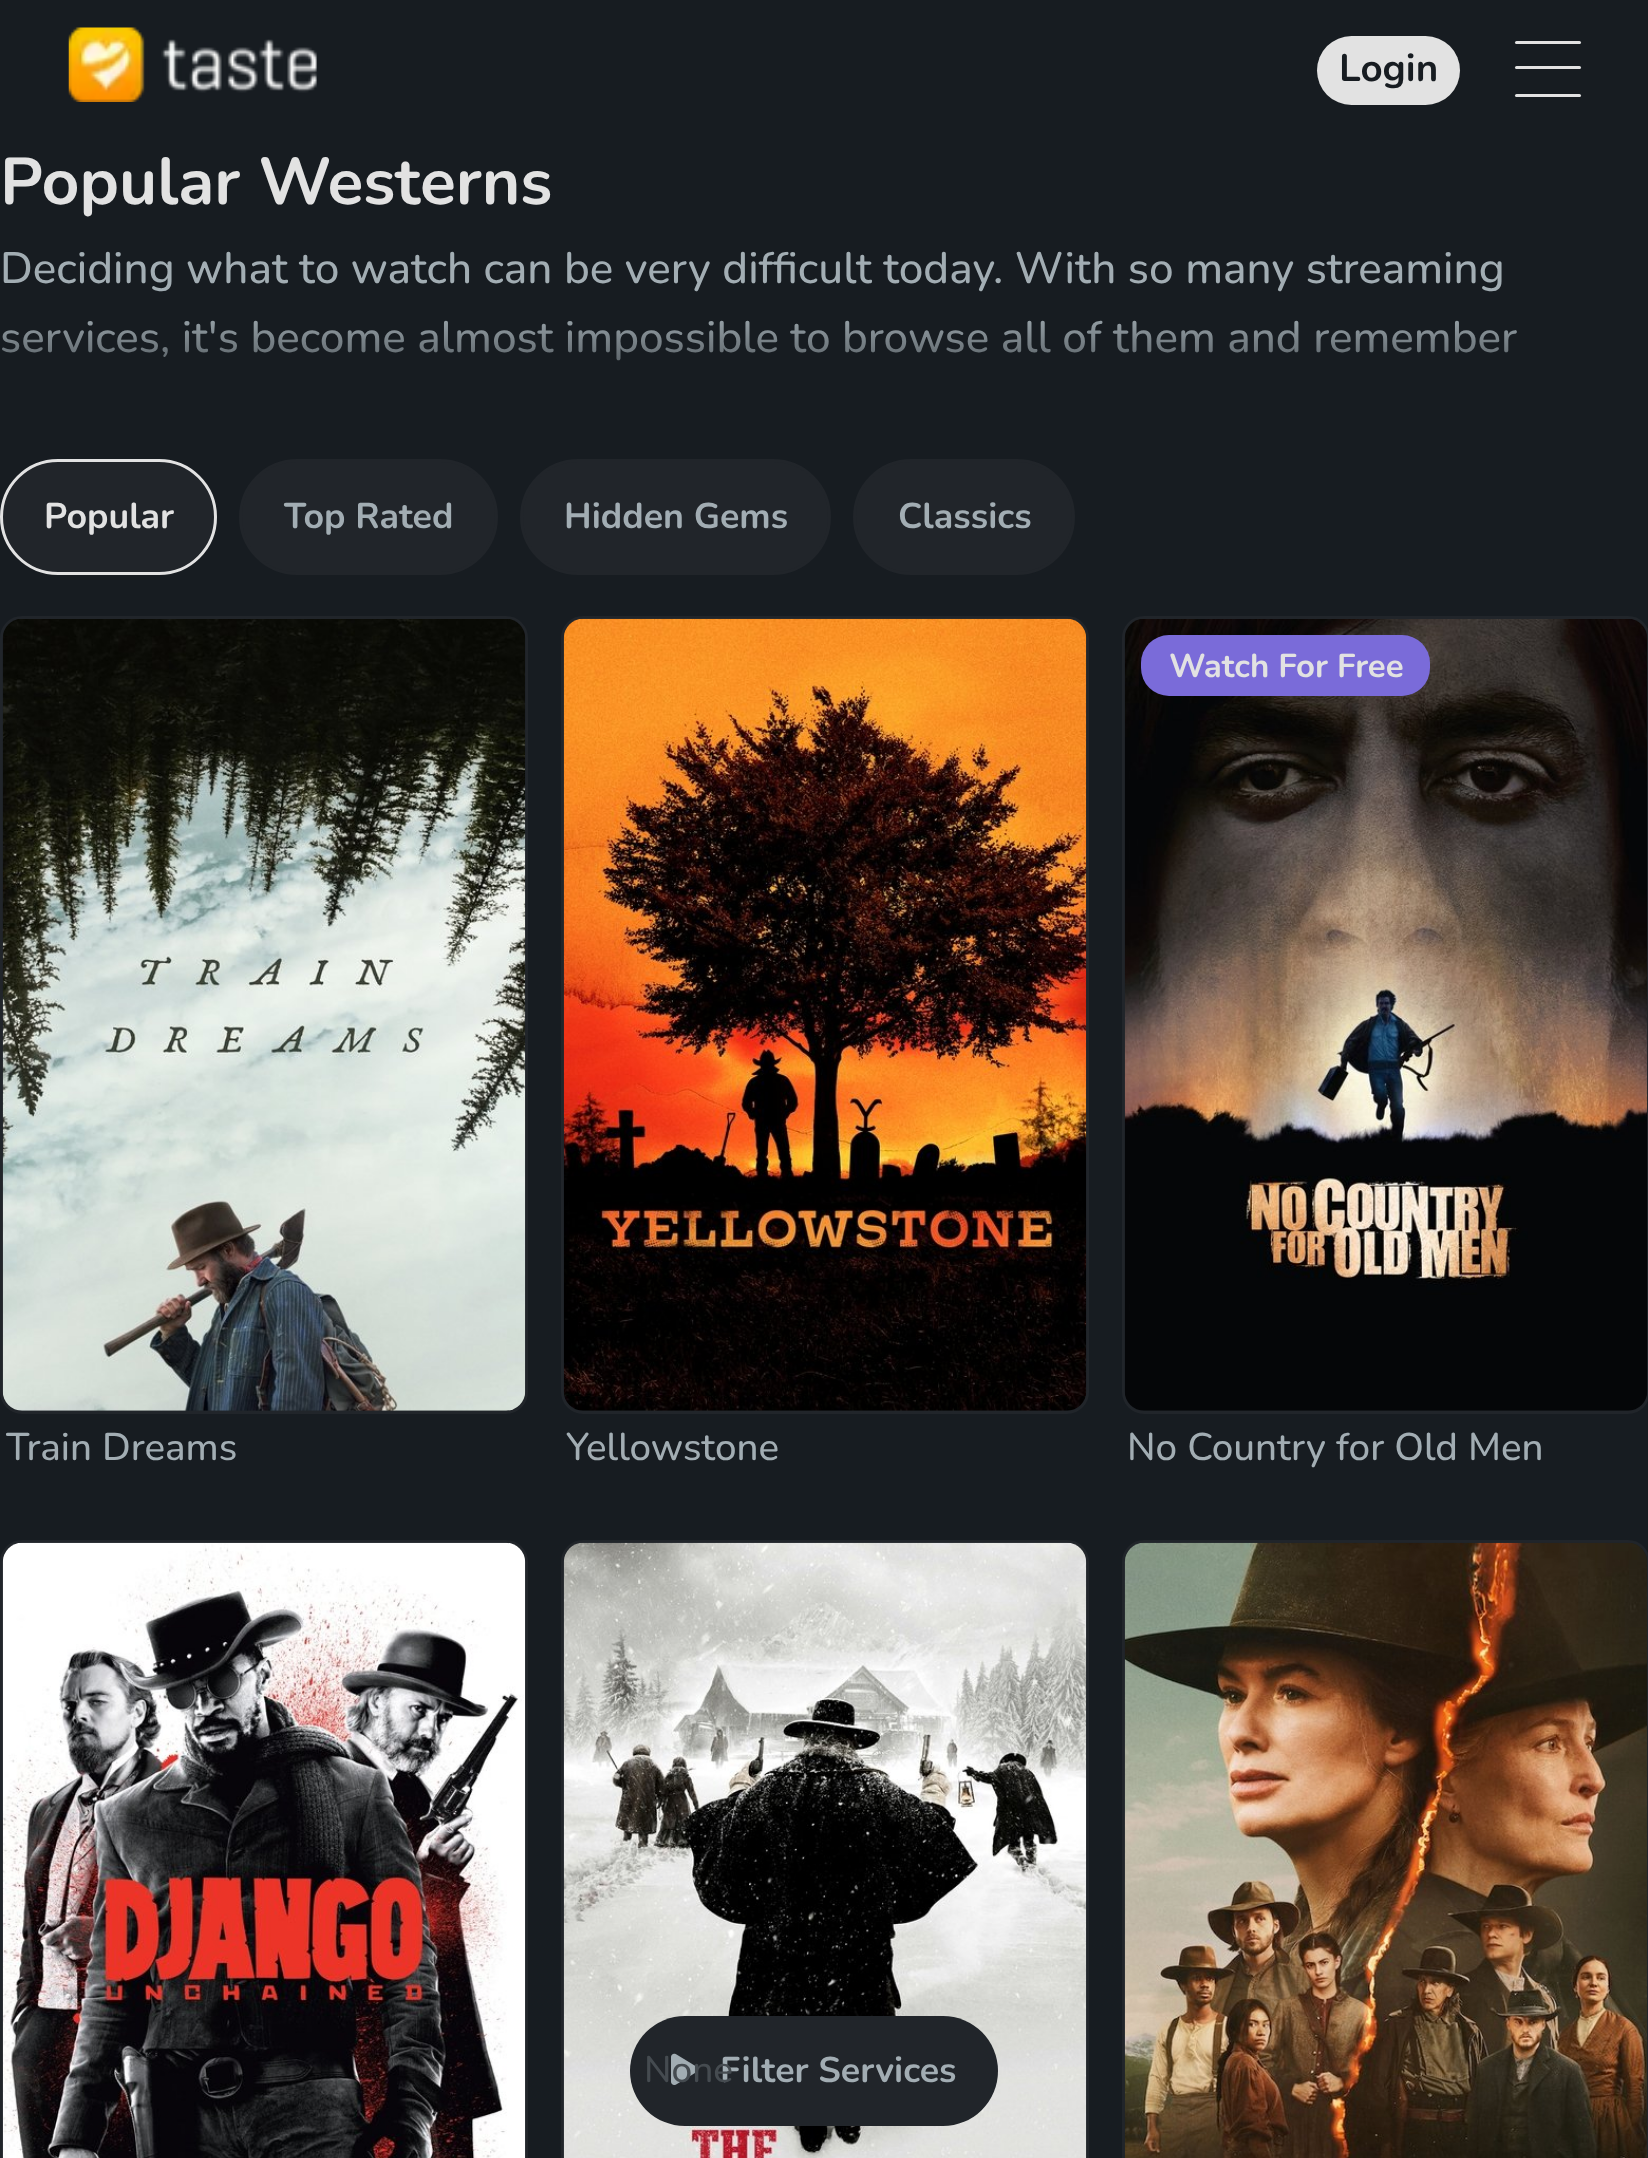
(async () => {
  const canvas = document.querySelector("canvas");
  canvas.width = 1648;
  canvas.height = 2158;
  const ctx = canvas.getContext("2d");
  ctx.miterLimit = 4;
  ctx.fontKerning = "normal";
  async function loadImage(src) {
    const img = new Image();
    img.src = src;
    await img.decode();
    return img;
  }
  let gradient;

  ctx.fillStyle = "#171c21";
  ctx.fillRect(0, 0, 1648, 2158);
  ctx.drawImage(await loadImage("img/1.png"), 68, 27, 249, 75);
  ctx.fillStyle = "#e2e2e2";
  ctx.beginPath();
  ctx.roundRect(1317, 36, 143, 69, 34.5);
  ctx.fill();
  ctx.beginPath();
  ctx.roundRect(1515, 41, 66, 3, 1.5);
  ctx.fill();
  ctx.beginPath();
  ctx.roundRect(1515, 66, 66, 3, 1.5);
  ctx.fill();
  ctx.beginPath();
  ctx.roundRect(1515, 94, 66, 3, 1.5);
  ctx.fill();
  ctx.fillStyle = "#21252a";
  ctx.beginPath();
  ctx.roundRect(1.5, 460.5, 214, 113, 56.5);
  ctx.fill();
  ctx.strokeStyle = "#e2e2e2";
  ctx.lineWidth = 3;
  ctx.stroke();
  ctx.beginPath();
  ctx.roundRect(240.5, 460.5, 256, 113, 56.5);
  ctx.fill();
  ctx.strokeStyle = "#21252a";
  ctx.stroke();
  ctx.beginPath();
  ctx.roundRect(521.5, 460.5, 308, 113, 56.5);
  ctx.fill();
  ctx.stroke();
  ctx.beginPath();
  ctx.roundRect(854.5, 460.5, 219, 113, 56.5);
  ctx.fill();
  ctx.stroke();
  ctx.beginPath();
  ctx.roundRect(1.5, 617.5, 525, 795, 20.5);
  ctx.fill();
  ctx.stroke();
  ctx.drawImage(await loadImage("img/2.png"), 2, 619, 524, 792);
  ctx.beginPath();
  ctx.roundRect(562.5, 617.5, 525, 795, 20.5);
  ctx.fill();
  ctx.stroke();
  ctx.drawImage(await loadImage("img/3.png"), 563, 618, 524, 793);
  ctx.beginPath();
  ctx.roundRect(1123.5, 617.5, 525, 795, 20.5);
  ctx.fill();
  ctx.stroke();
  ctx.drawImage(await loadImage("img/4.png"), 1124, 619, 524, 792);
  ctx.fillStyle = "#7a6bd9";
  ctx.beginPath();
  ctx.roundRect(1141, 635, 289, 61, 28);
  ctx.fill();
  ctx.beginPath();
  ctx.roundRect(1.5, 1541.5, 525, 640, 20.5);
  ctx.stroke();
  ctx.drawImage(await loadImage("img/5.png"), 2, 1542, 524, 616);
  ctx.beginPath();
  ctx.roundRect(562.5, 1541.5, 525, 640, 20.5);
  ctx.stroke();
  ctx.drawImage(await loadImage("img/6.png"), 563, 1542, 524, 616);
  ctx.beginPath();
  ctx.roundRect(1123.5, 1541.5, 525, 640, 20.5);
  ctx.stroke();
  ctx.drawImage(await loadImage("img/7.png"), 1124, 1542, 523, 616);
  ctx.fillStyle = "#21252a";
  ctx.beginPath();
  ctx.roundRect(630, 2016, 368, 110, 55);
  ctx.fill();
  ctx.drawImage(await loadImage("img/8.png"), 671, 2053, 27, 32);
  ctx.font = "bold 38.5px Nunito";
  ctx.fillStyle = "#171c21";
  ctx.fillText("Login", 1339, 81);
  ctx.font = "bold 66px Nunito";
  ctx.fillStyle = "#e2e2e2";
  ctx.fillText("Popular Westerns", 0, 204);
  ctx.font = "500 44px Nunito";
  ctx.fillStyle = "#a2adb3";
  ctx.fillText("Deciding what to watch can be very difficult today. With so many streaming", 0, 283);
  ctx.fillText("services, it's become almost impossible to browse all of them and remember", 0, 352);
  gradient = ctx.createLinearGradient(825, 308, 825, 418);
  gradient.addColorStop(0, "rgba(23, 28, 33, 0)");
  gradient.addColorStop(1, "#171c21");
  ctx.fillStyle = gradient;
  ctx.fillRect(2, 320, 1515, 41);
  ctx.font = "bold 35.75px Nunito";
  ctx.fillStyle = "#e2e2e2";
  ctx.fillText("Popular", 44, 528);
  ctx.fillStyle = "#a2adb3";
  for (const [text, x, y] of [
    ["Top Rated", 284, 528],
    ["Hidden Gems", 564, 528],
    ["Classics", 898, 528],
  ]) {
    ctx.fillText(text, x, y);
  }
  ctx.save();
  ctx.beginPath();
  ctx.rect(6, 1425, 231, 46);
  ctx.clip();
  ctx.font = "500 38.5px Nunito";
  ctx.fillText("Train Dreams", 6, 1460);
  ctx.restore();
  ctx.font = "500 38.5px Nunito";
  ctx.fillText("Yellowstone", 566, 1460);
  ctx.font = "bold 33px Nunito";
  ctx.fillStyle = "#e2e2e2";
  ctx.fillText("Watch For Free", 1169, 677);
  ctx.font = "500 38.5px Nunito";
  ctx.fillStyle = "#a2adb3";
  ctx.fillText("No Country for Old Men", 1127, 1460);
  ctx.font = "bold 35.75px Nunito";
  ctx.fillText("Filter Services", 720, 2082);
  ctx.font = "500 37px Nunito";
  ctx.fillStyle = "#454b50";
  ctx.fillText("None", 644, 2082);
})();
